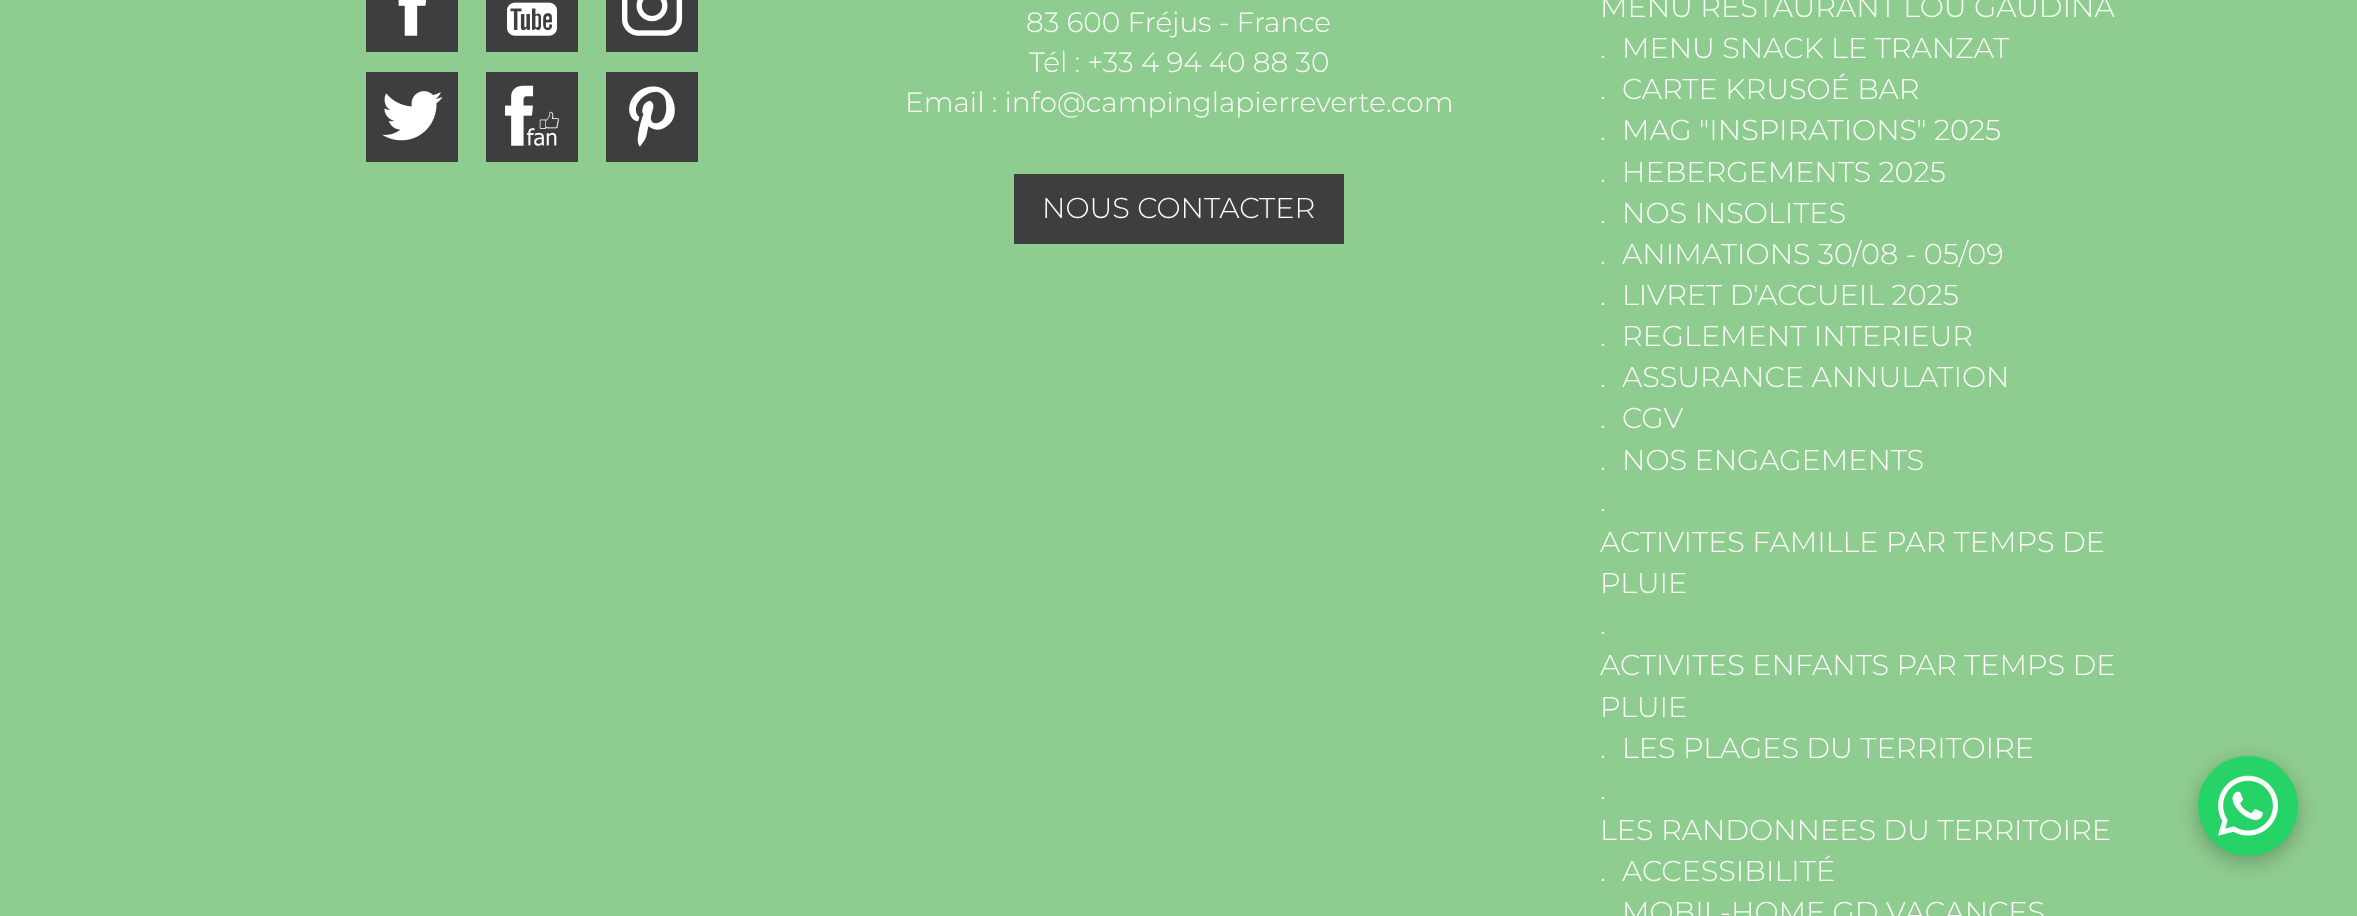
(async () => {
  const canvas = document.querySelector("canvas");
  canvas.width = 2357;
  canvas.height = 916;
  const ctx = canvas.getContext("2d");
  ctx.miterLimit = 4;
  ctx.fontKerning = "normal";
  async function loadImage(src) {
    const img = new Image();
    img.src = src;
    await img.decode();
    return img;
  }

  ctx.fillStyle = "#8fcc8f";
  ctx.fillRect(0, 0, 2357, 916);
  ctx.fillStyle = "#3e3e3e";
  ctx.fillRect(366, 0, 92, 52);
  ctx.drawImage(await loadImage("img/1.png"), 398, 0, 29, 36);
  ctx.fillRect(486, 0, 92, 52);
  ctx.drawImage(await loadImage("img/2.png"), 507, 2, 50, 34);
  ctx.fillRect(606, 0, 92, 52);
  ctx.drawImage(await loadImage("img/3.png"), 622, 0, 61, 36);
  ctx.fillRect(366, 72, 92, 90);
  ctx.drawImage(await loadImage("img/4.png"), 382, 91, 61, 50);
  ctx.fillRect(486, 72, 92, 90);
  ctx.drawImage(await loadImage("img/5.png"), 505, 85, 54, 61);
  ctx.fillRect(606, 72, 92, 90);
  ctx.drawImage(await loadImage("img/6.png"), 629, 86, 46, 61);
  ctx.fillRect(1014, 174, 330, 70);
  ctx.fillStyle = "rgba(0, 0, 0, 0.25)";
  ctx.filter = "blur(10px)";
  ctx.beginPath();
  ctx.roundRect(2198, 762, 100, 100, 50);
  ctx.fill();
  ctx.filter = "none";
  ctx.fillStyle = "#25d366";
  ctx.beginPath();
  ctx.arc(2248, 806, 50, 0, Math.PI * 2);
  ctx.fill();
  ctx.drawImage(await loadImage("img/7.png"), 2218, 775, 60, 61);
  ctx.font = "300 28px Montserrat";
  ctx.fillStyle = "#ffffff";
  for (const [text, x, y] of [
    ["83 600 Fréjus - France", 1026, 32],
    ["Tél : +33 4 94 40 88 30", 1029, 72],
    ["Email : info@campinglapierreverte.com", 905, 112],
  ]) {
    ctx.fillText(text, x, y);
  }
  ctx.font = "300 28.75px Montserrat";
  for (const [text, x, y] of [
    ["NOUS CONTACTER", 1042, 218],
    ["MENU RESTAURANT LOU GAUDINA", 1600, 17],
    [".", 1600, 58],
    ["MENU SNACK LE TRANZAT", 1622, 58],
    [".", 1600, 99],
    ["CARTE KRUSOÉ BAR", 1622, 99],
    [".", 1600, 140],
    ["MAG \"INSPIRATIONS\" 2025", 1622, 140],
    [".", 1600, 182],
    ["HEBERGEMENTS 2025", 1622, 182],
    [".", 1600, 223],
    ["NOS INSOLITES", 1622, 223],
    [".", 1600, 264],
    ["ANIMATIONS 30/08 - 05/09", 1622, 264],
    [".", 1600, 305],
    ["LIVRET D'ACCUEIL 2025", 1622, 305],
    [".", 1600, 346],
    ["REGLEMENT INTERIEUR", 1622, 346],
    [".", 1600, 387],
    ["ASSURANCE ANNULATION", 1622, 387],
    [".", 1600, 428],
    ["CGV", 1622, 428],
    [".", 1600, 470],
    ["NOS ENGAGEMENTS", 1622, 470],
    [".", 1600, 511],
    ["ACTIVITES FAMILLE PAR TEMPS DE", 1600, 552],
    ["PLUIE", 1600, 593],
    [".", 1600, 634],
    ["ACTIVITES ENFANTS PAR TEMPS DE", 1600, 675],
    ["PLUIE", 1600, 717],
    [".", 1600, 758],
    ["LES PLAGES DU TERRITOIRE", 1622, 758],
    [".", 1600, 799],
    ["LES RANDONNEES DU TERRITOIRE", 1600, 840],
    [".", 1600, 881],
    ["ACCESSIBILITÉ", 1622, 881],
    ["MOBIL-HOME GD VACANCES", 1622, 922],
  ]) {
    ctx.fillText(text, x, y);
  }
})();
